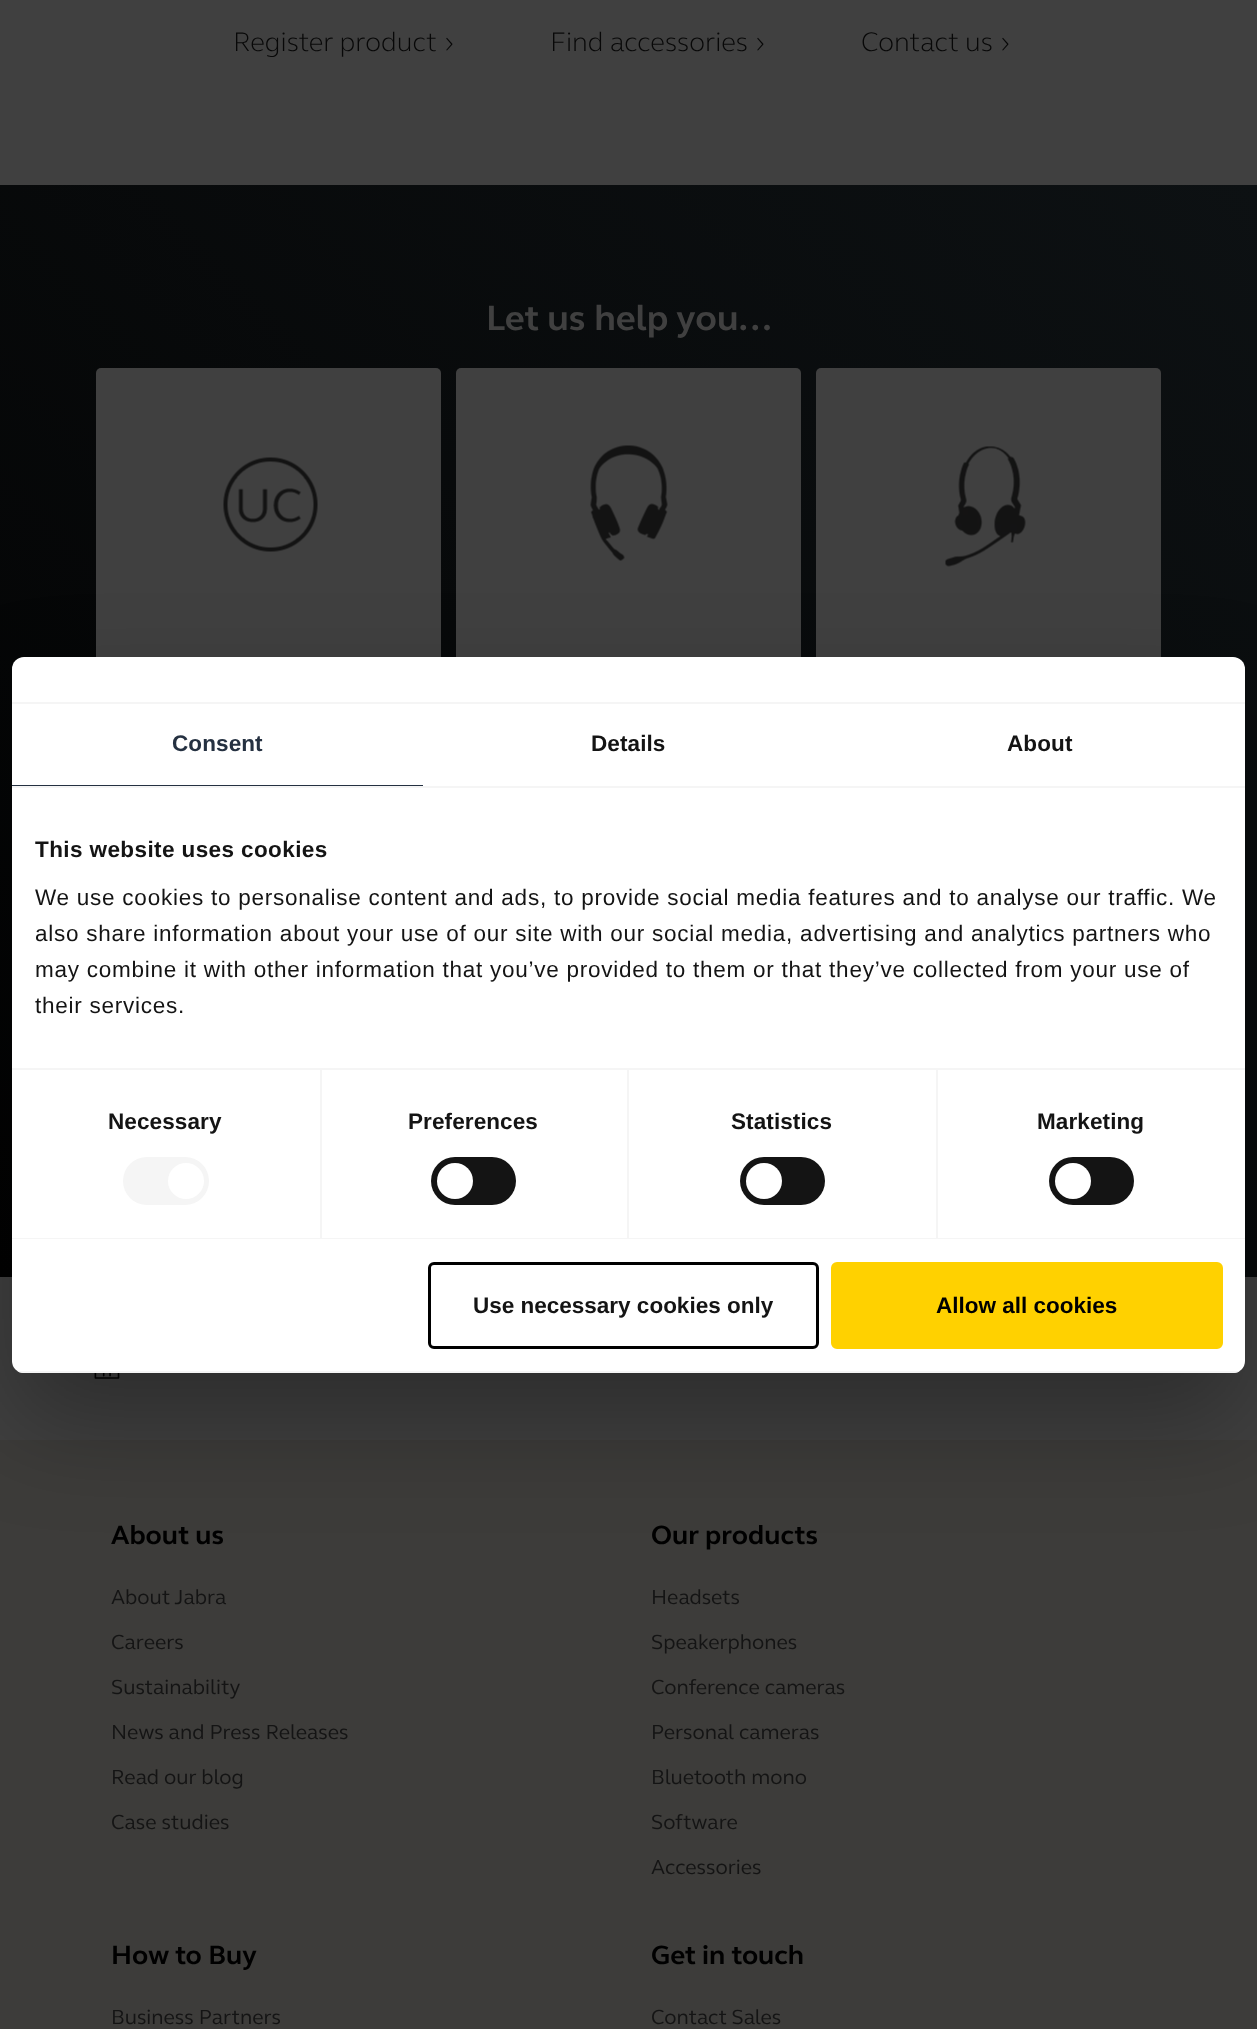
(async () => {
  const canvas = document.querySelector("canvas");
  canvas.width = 1257;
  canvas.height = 2029;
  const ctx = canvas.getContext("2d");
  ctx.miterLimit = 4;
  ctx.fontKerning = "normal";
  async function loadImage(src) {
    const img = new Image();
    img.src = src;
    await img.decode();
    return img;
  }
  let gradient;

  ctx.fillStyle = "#404040";
  ctx.fillRect(0, 0, 1257, 2029);
  gradient = ctx.createLinearGradient(41, 1318, 1216, 143);
  gradient.addColorStop(0, "#020202");
  gradient.addColorStop(1, "#0d1113");
  ctx.fillStyle = gradient;
  ctx.fillRect(0, 185, 1257, 1092);
  ctx.fillStyle = "#404040";
  ctx.beginPath();
  ctx.roundRect(96, 368, 345, 387, 5);
  ctx.fill();
  ctx.drawImage(await loadImage("img/1.png"), 223, 457, 95, 95);
  ctx.beginPath();
  ctx.roundRect(456, 368, 345, 387, 5);
  ctx.fill();
  ctx.drawImage(await loadImage("img/2.png"), 590, 445, 78, 116);
  ctx.beginPath();
  ctx.roundRect(816, 368, 345, 387, 5);
  ctx.fill();
  ctx.drawImage(await loadImage("img/3.png"), 945, 446, 81, 121);
  ctx.drawImage(await loadImage("img/4.png"), 94, 1373, 26, 6);
  ctx.fillStyle = "#3d3c3a";
  ctx.fillRect(0, 1440, 1257, 589);
  ctx.fillStyle = "rgba(0, 0, 0, 0.3)";
  ctx.filter = "blur(51px)";
  ctx.beginPath();
  ctx.roundRect(12, 705, 1233, 716, 12);
  ctx.fill();
  ctx.filter = "none";
  ctx.fillStyle = "#ffffff";
  ctx.beginPath();
  ctx.roundRect(12, 657, 1233, 716, 12);
  ctx.fill();
  for (const [x, y, w, h, color] of [
    [12, 702, 1233, 2, "#f5f5f5"],
    [12, 786, 1233, 2, "#f5f5f5"],
    [12, 785, 411, 1, "#253141"],
    [12, 1068, 1233, 2, "#f5f5f5"],
    [12, 1238, 1233, 1, "#f5f5f5"],
    [320, 1070, 2, 168, "#f5f5f5"],
  ]) {
    ctx.fillStyle = color;
    ctx.fillRect(x, y, w, h);
  }
  ctx.beginPath();
  ctx.roundRect(123, 1157, 86, 48, 24);
  ctx.fill();
  ctx.fillStyle = "#ffffff";
  ctx.beginPath();
  ctx.arc(186, 1181, 18, 0, Math.PI * 2);
  ctx.fill();
  ctx.fillStyle = "#f5f5f5";
  ctx.fillRect(627, 1070, 2, 168);
  ctx.fillStyle = "#141414";
  ctx.beginPath();
  ctx.roundRect(431, 1157, 85, 48, 24);
  ctx.fill();
  ctx.fillStyle = "#ffffff";
  ctx.beginPath();
  ctx.arc(455, 1181, 18, 0, Math.PI * 2);
  ctx.fill();
  ctx.fillStyle = "#f5f5f5";
  ctx.fillRect(936, 1070, 2, 168);
  ctx.fillStyle = "#141414";
  ctx.beginPath();
  ctx.roundRect(740, 1157, 85, 48, 24);
  ctx.fill();
  ctx.fillStyle = "#ffffff";
  ctx.beginPath();
  ctx.arc(764, 1181, 18, 0, Math.PI * 2);
  ctx.fill();
  ctx.fillStyle = "#141414";
  ctx.beginPath();
  ctx.roundRect(1049, 1157, 85, 48, 24);
  ctx.fill();
  ctx.fillStyle = "#ffffff";
  ctx.beginPath();
  ctx.arc(1073, 1181, 18, 0, Math.PI * 2);
  ctx.fill();
  ctx.save();
  ctx.beginPath();
  ctx.roundRect(12, 657, 1233, 716, 12);
  ctx.clip();
  ctx.fillStyle = "#f5f5f5";
  ctx.fillRect(12, 1371, 1233, 2);
  ctx.restore();
  ctx.beginPath();
  ctx.roundRect(429.5, 1263.5, 388, 84, 4.5);
  ctx.strokeStyle = "#000000";
  ctx.lineWidth = 3;
  ctx.stroke();
  ctx.fillStyle = "#ffd100";
  ctx.beginPath();
  ctx.roundRect(832.5, 1263.5, 389, 84, 4.5);
  ctx.fill();
  ctx.strokeStyle = "#ffd100";
  ctx.stroke();
  ctx.font = "300 27.5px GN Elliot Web";
  ctx.fillStyle = "#070707";
  for (const [text, x, y] of [
    ["Register product", 233, 51],
    ["›", 445, 51],
    ["Find accessories", 550, 51],
    ["›", 756, 51],
    ["Contact us", 861, 51],
    ["›", 1001, 51],
  ]) {
    ctx.fillText(text, x, y);
  }
  ctx.font = "bold 36px GN Elliot Web";
  ctx.fillStyle = "#404040";
  ctx.fillText("Let us help you...", 486, 330);
  ctx.letterSpacing = "0.1px";
  ctx.font = "bold 22.5px Liberation Sans";
  ctx.fillStyle = "#253141";
  ctx.fillText("Consent", 172, 751);
  ctx.fillStyle = "#141414";
  ctx.fillText("Details", 591, 751);
  ctx.fillText("About", 1007, 751);
  ctx.letterSpacing = "0.4px";
  ctx.fillText("This website uses cookies", 35, 857);
  ctx.letterSpacing = "0.75px";
  ctx.font = "22.5px Liberation Sans";
  for (const [text, x, y] of [
    ["We use cookies to personalise content and ads, to provide social media features and to analyse our traffic. We", 35, 905],
    ["also share information about your use of our site with our social media, advertising and analytics partners who", 35, 941],
    ["may combine it with other information that you’ve provided to them or that they’ve collected from your use of", 35, 977],
    ["their services.", 35, 1013],
  ]) {
    ctx.fillText(text, x, y);
  }
  ctx.letterSpacing = "0.1px";
  ctx.font = "bold 22.5px Liberation Sans";
  for (const [text, x, y] of [
    ["Necessary", 108, 1129],
    ["Preferences", 408, 1129],
    ["Statistics", 731, 1129],
    ["Marketing", 1037, 1129],
  ]) {
    ctx.fillText(text, x, y);
  }
  ctx.letterSpacing = "0px";
  ctx.fillText("Use necessary cookies only", 473, 1313);
  ctx.fillStyle = "#000000";
  ctx.fillText("Allow all cookies", 936, 1313);
  ctx.font = "bold 27px GN Elliot Web";
  ctx.fillText("About us", 111, 1544);
  ctx.font = "21px GN Elliot Web";
  ctx.fillStyle = "#141414";
  for (const [text, x, y] of [
    ["About Jabra", 111, 1604],
    ["Careers", 111, 1649],
    ["Sustainability", 111, 1694],
    ["News and Press Releases", 111, 1739],
    ["Read our blog", 111, 1784],
    ["Case studies", 111, 1829],
  ]) {
    ctx.fillText(text, x, y);
  }
  ctx.font = "bold 27px GN Elliot Web";
  ctx.fillStyle = "#000000";
  ctx.fillText("Our products", 651, 1544);
  ctx.font = "21px GN Elliot Web";
  ctx.fillStyle = "#141414";
  for (const [text, x, y] of [
    ["Headsets", 651, 1604],
    ["Speakerphones", 651, 1649],
    ["Conference cameras", 651, 1694],
    ["Personal cameras", 651, 1739],
    ["Bluetooth mono", 651, 1784],
    ["Software", 651, 1829],
    ["Accessories", 651, 1874],
  ]) {
    ctx.fillText(text, x, y);
  }
  ctx.font = "bold 27px GN Elliot Web";
  ctx.fillStyle = "#000000";
  ctx.fillText("How to Buy", 111, 1964);
  ctx.font = "21px GN Elliot Web";
  ctx.fillStyle = "#141414";
  ctx.fillText("Business Partners", 111, 2024);
  ctx.font = "bold 27px GN Elliot Web";
  ctx.fillStyle = "#000000";
  ctx.fillText("Get in touch", 651, 1964);
  ctx.font = "21px GN Elliot Web";
  ctx.fillStyle = "#141414";
  ctx.fillText("Contact Sales", 651, 2024);
})();
